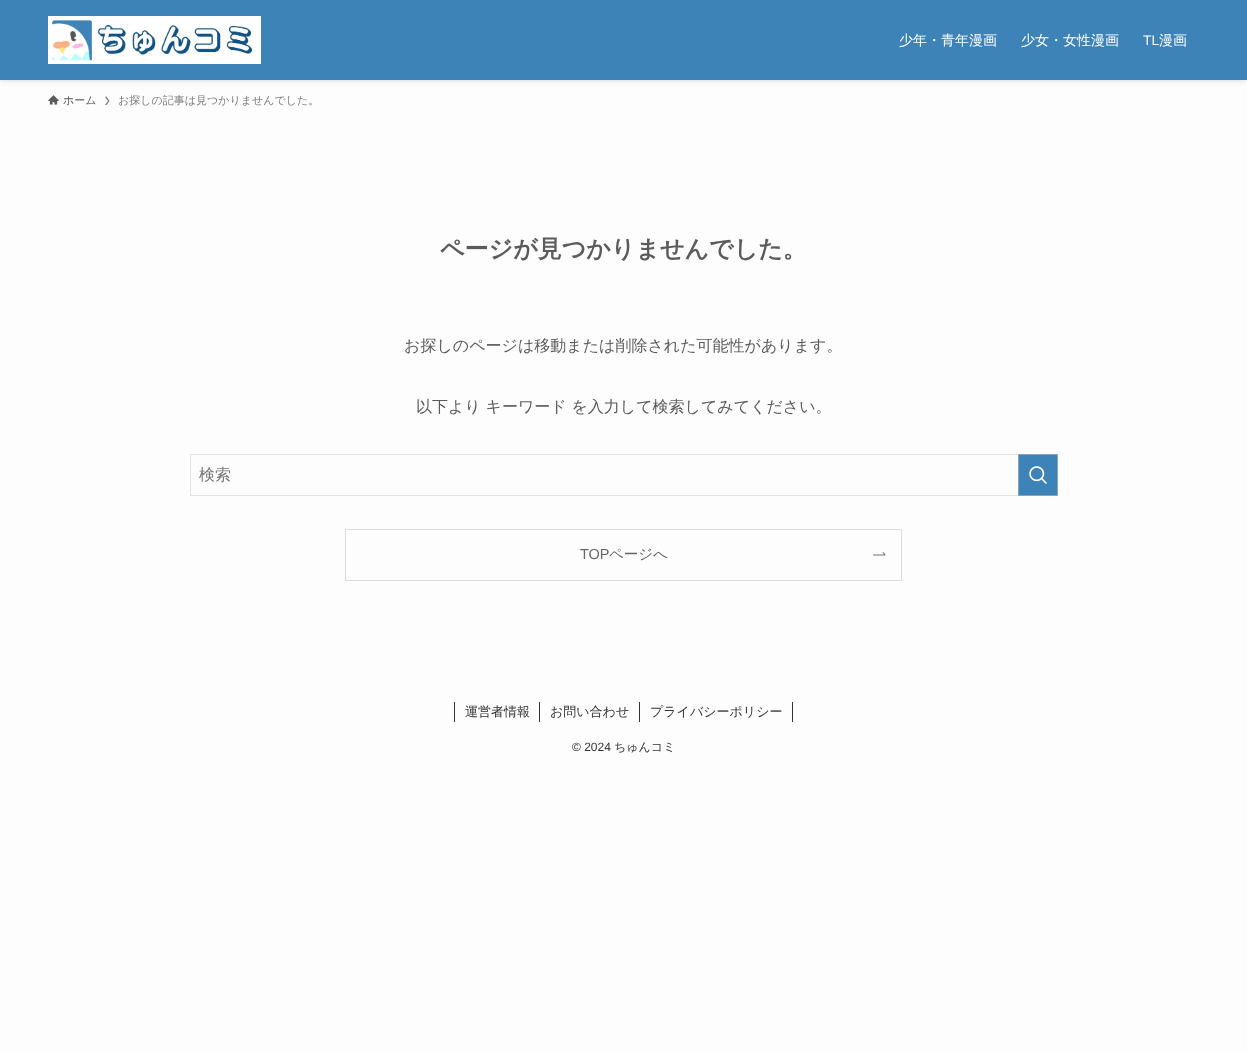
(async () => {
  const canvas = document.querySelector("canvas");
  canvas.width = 1247;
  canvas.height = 1051;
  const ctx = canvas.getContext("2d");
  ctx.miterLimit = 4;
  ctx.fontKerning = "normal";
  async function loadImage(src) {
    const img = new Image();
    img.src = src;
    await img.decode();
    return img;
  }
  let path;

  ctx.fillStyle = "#fdfdfd";
  ctx.fillRect(0, 0, 1247, 1051);
  ctx.fillStyle = "rgba(0, 0, 0, 0.12)";
  ctx.filter = "blur(2px)";
  ctx.beginPath();
  ctx.rect(0, 1, 1247, 80);
  ctx.fill();
  ctx.filter = "none";
  ctx.fillStyle = "#3e83b7";
  ctx.fillRect(0, 0, 1247, 80);
  ctx.drawImage(await loadImage("img/1.png"), 48, 16, 213, 48);
  ctx.drawImage(await loadImage("img/2.png"), 48, 95, 11, 10);
  ctx.fillStyle = "#7b7b7b";
  path = new Path2D("M106.5 96.5L105 97L108 101L105 105H106.5L109.5 101Z");
  ctx.fill(path);
  ctx.strokeStyle = "#e3e3e3";
  ctx.strokeRect(190.5, 454.5, 867, 41);
  ctx.fillStyle = "#3e83b7";
  ctx.beginPath();
  ctx.rect(1018.5, 454.5, 39, 41);
  ctx.fill();
  ctx.strokeStyle = "#83a5bf";
  ctx.stroke();
  ctx.drawImage(await loadImage("img/3.png"), 1029, 466, 18, 18);
  ctx.strokeStyle = "#dcdcdc";
  ctx.strokeRect(345.5, 529.5, 556, 51);
  ctx.drawImage(await loadImage("img/4.png"), 873, 552, 13, 4);
  for (const [x, y, w, h, color] of [
    [539, 702, 1, 20, "#333333"],
    [454, 702, 1, 20, "#333333"],
    [639, 702, 1, 20, "#333333"],
    [792, 702, 1, 20, "#333333"],
  ]) {
    ctx.fillStyle = color;
    ctx.fillRect(x, y, w, h);
  }
  ctx.font = "500 14px WenQuanYi Zen Hei";
  ctx.fillStyle = "#ffffff";
  ctx.fillText("少年・青年漫画", 899, 45);
  ctx.fillText("少女・女性漫画", 1021, 45);
  ctx.font = "14px Liberation Sans";
  ctx.fillText("TL", 1143, 45);
  ctx.font = "500 14px WenQuanYi Zen Hei";
  ctx.fillText("漫画", 1159, 45);
  ctx.font = "500 11px WenQuanYi Zen Hei";
  ctx.fillStyle = "#5b5b5b";
  ctx.fillText("ホーム", 63, 104);
  ctx.fillStyle = "#7b7b7b";
  ctx.fillText("お探しの記事は見つかりませんでした。", 118, 104);
  ctx.font = "bold 24px WenQuanYi Zen Hei";
  ctx.fillStyle = "#5b5b5b";
  ctx.fillText("ページが見つかりませんでした。", 440, 257);
  ctx.font = "500 16px WenQuanYi Zen Hei";
  ctx.fillText("お探しのページは移動または削除された可能性があります。", 404, 351);
  ctx.fillText("以下より キーワード を入力して検索してみてください。", 416, 412);
  ctx.fillStyle = "#757575";
  ctx.fillText("検索", 199, 480);
  ctx.font = "14.5px Liberation Sans";
  ctx.fillStyle = "#666666";
  ctx.fillText("TOP", 580, 559);
  ctx.font = "500 14.5px WenQuanYi Zen Hei";
  ctx.fillText("ページへ", 609, 559);
  ctx.font = "500 13px WenQuanYi Zen Hei";
  ctx.fillStyle = "#333333";
  for (const [text, x, y] of [
    ["運営者情報", 465, 716],
    ["お問い合わせ", 550, 716],
    ["プライバシーポリシー", 650, 716],
  ]) {
    ctx.fillText(text, x, y);
  }
  ctx.font = "12px Liberation Sans";
  ctx.fillText("© 2024", 572, 751);
  ctx.font = "500 12px WenQuanYi Zen Hei";
  ctx.fillText("ちゅんコミ", 614, 751);
})();
